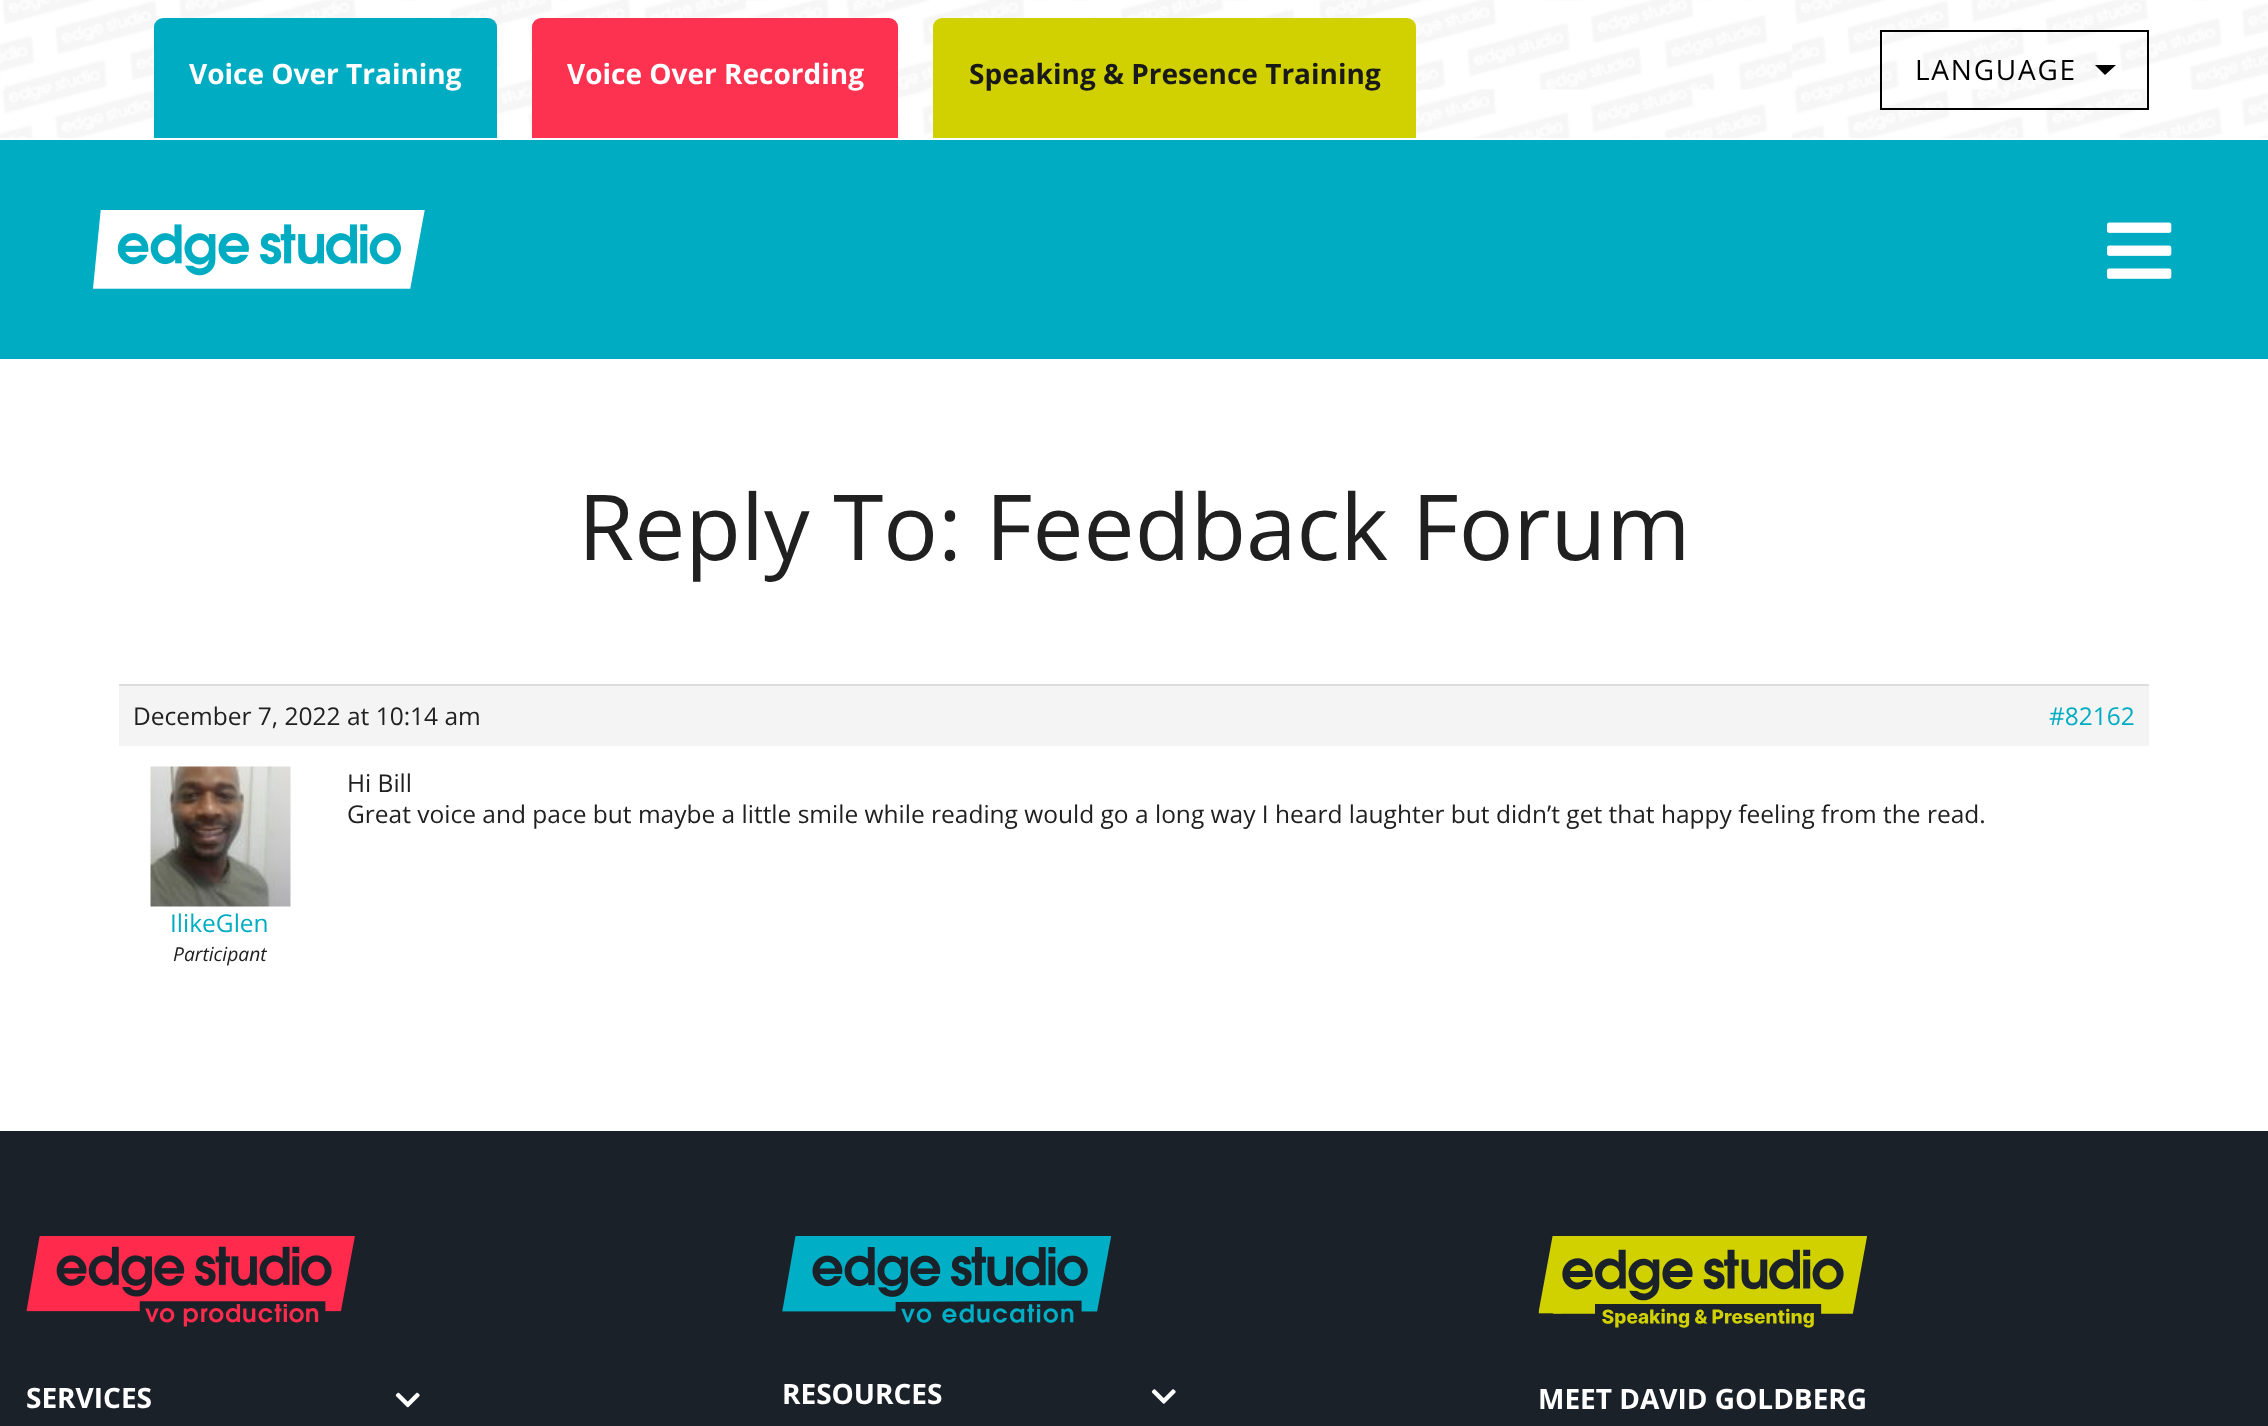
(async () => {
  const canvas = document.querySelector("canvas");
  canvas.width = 2268;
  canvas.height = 1426;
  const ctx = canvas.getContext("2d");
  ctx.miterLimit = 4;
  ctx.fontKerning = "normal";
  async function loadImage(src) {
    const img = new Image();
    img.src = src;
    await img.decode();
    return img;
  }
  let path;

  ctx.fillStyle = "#ffffff";
  ctx.fillRect(0, 0, 2268, 1426);
  ctx.drawImage(await loadImage("img/1.png"), 0, 0, 2268, 138);
  ctx.fillStyle = "#00acc2";
  ctx.beginPath();
  ctx.roundRect(154, 18, 343, 120, [9, 9, 0, 0]);
  ctx.fill();
  ctx.fillStyle = "#fd3250";
  ctx.beginPath();
  ctx.roundRect(532, 18, 366, 120, [9, 9, 0, 0]);
  ctx.fill();
  ctx.fillStyle = "#d1d101";
  ctx.beginPath();
  ctx.roundRect(933, 18, 483, 120, [9, 9, 0, 0]);
  ctx.fill();
  ctx.strokeStyle = "#000000";
  ctx.lineWidth = 2;
  ctx.strokeRect(1881, 31, 267, 78);
  ctx.fillStyle = "#000000";
  path = new Path2D("M2095 65H2116L2105 75Z");
  ctx.fill(path);
  ctx.fillStyle = "#00acc1";
  ctx.fillRect(0, 140, 2268, 219);
  ctx.drawImage(await loadImage("img/2.png"), 93, 210, 332, 79);
  ctx.drawImage(await loadImage("img/3.png"), 2107, 222, 65, 57);
  ctx.fillStyle = "#f4f4f4";
  ctx.fillRect(119, 686, 2030, 60);
  ctx.fillStyle = "#dddddd";
  ctx.fillRect(119, 684, 2030, 2);
  ctx.drawImage(await loadImage("img/4.png"), 150, 766, 141, 141);
  ctx.fillStyle = "#1b2129";
  ctx.fillRect(0, 1131, 2268, 295);
  ctx.drawImage(await loadImage("img/5.png"), 26, 1236, 329, 91);
  ctx.drawImage(await loadImage("img/6.png"), 395, 1392, 25, 16);
  ctx.drawImage(await loadImage("img/7.png"), 782, 1236, 329, 87);
  ctx.drawImage(await loadImage("img/8.png"), 1151, 1389, 25, 15);
  ctx.drawImage(await loadImage("img/9.png"), 1538, 1236, 329, 92);
  ctx.font = "bold 28px Open Sans";
  ctx.fillStyle = "#ffffff";
  ctx.fillText("Voice Over Training", 189, 84);
  ctx.fillText("Voice Over Recording", 567, 84);
  ctx.fillStyle = "#191919";
  ctx.fillText("Speaking & Presence Training", 969, 84);
  ctx.letterSpacing = "1.75px";
  ctx.font = "28px Open Sans";
  ctx.fillStyle = "#000000";
  ctx.fillText("LANGUAGE", 1915, 80);
  ctx.letterSpacing = "0px";
  ctx.font = "91px Open Sans";
  ctx.fillStyle = "#202020";
  ctx.fillText("Reply To: Feedback Forum", 578, 560);
  ctx.font = "24.5px Open Sans";
  ctx.fillText("December 7, 2022 at 10:14 am", 133, 725);
  ctx.fillStyle = "#00acc1";
  ctx.fillText("#82162", 2049, 725);
  ctx.fillStyle = "#202020";
  ctx.fillText("Hi Bill", 347, 792);
  ctx.fillText("Great voice and pace but maybe a little smile while reading would go a long way I heard laughter but didn’t get that happy feeling from the read.", 347, 823);
  ctx.fillStyle = "#00acc1";
  ctx.fillText("IlikeGlen", 170, 932);
  ctx.font = "italic 19.25px Open Sans";
  ctx.fillStyle = "#202020";
  ctx.fillText("Participant", 173, 961);
  ctx.font = "bold 28px Open Sans";
  ctx.fillStyle = "#ffffff";
  for (const [text, x, y] of [
    ["SERVICES", 26, 1408],
    ["RESOURCES", 782, 1404],
    ["MEET DAVID GOLDBERG", 1538, 1409],
  ]) {
    ctx.fillText(text, x, y);
  }
})();
